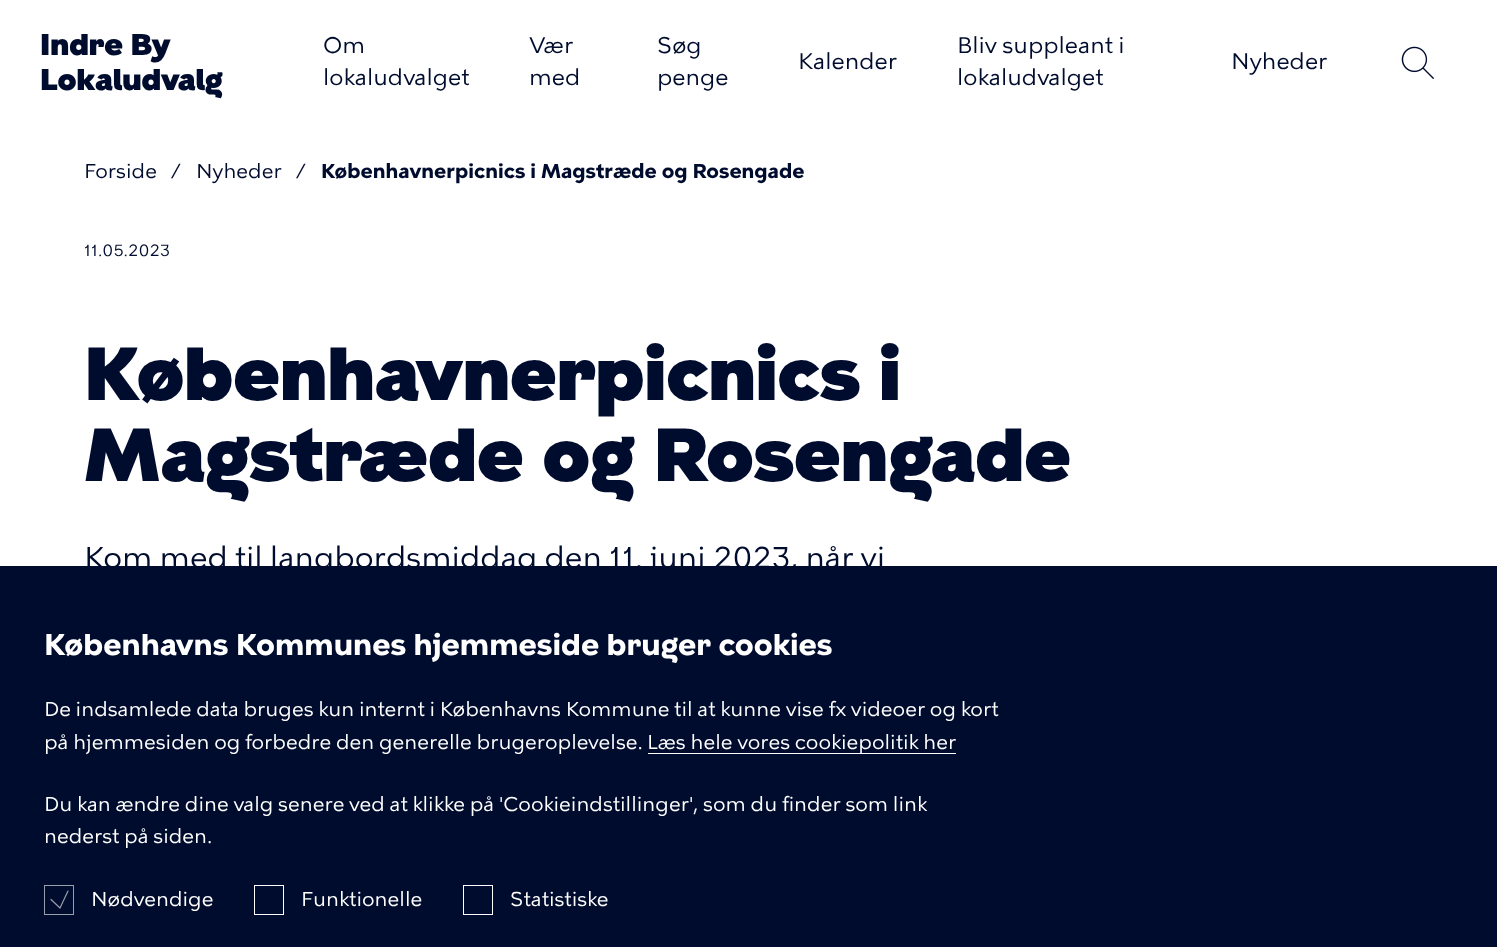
(async () => {
  const canvas = document.querySelector("canvas");
  canvas.width = 1497;
  canvas.height = 947;
  const ctx = canvas.getContext("2d");
  ctx.miterLimit = 4;
  ctx.fontKerning = "normal";
  async function loadImage(src) {
    const img = new Image();
    img.src = src;
    await img.decode();
    return img;
  }
  let path;

  ctx.fillStyle = "#ffffff";
  ctx.fillRect(0, 0, 1497, 947);
  ctx.drawImage(await loadImage("img/1.png"), 1401, 46, 33, 33);
  ctx.fillStyle = "#000c2e";
  ctx.fillRect(0, 566, 1497, 381);
  ctx.fillStyle = "#ffffff";
  ctx.fillRect(648, 753, 308, 1);
  ctx.strokeStyle = "#999eab";
  ctx.strokeRect(44.5, 885.5, 29, 29);
  path = new Path2D("M51 899.5L60 908L68 891");
  ctx.lineWidth = 1.2;
  ctx.lineCap = "round";
  ctx.stroke(path);
  ctx.strokeStyle = "#ffffff";
  ctx.lineWidth = 1;
  ctx.strokeRect(254.5, 885.5, 29, 29);
  ctx.strokeRect(463.5, 885.5, 29, 29);
  ctx.font = "900 30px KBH";
  ctx.fillStyle = "#000c2e";
  ctx.fillText("Indre By", 40, 55);
  ctx.fillText("Lokaludvalg", 40, 90);
  ctx.font = "22.5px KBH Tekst";
  for (const [text, x, y] of [
    ["Om", 323, 53],
    ["lokaludvalget", 323, 85],
    ["Vær", 529, 53],
    ["med", 529, 85],
    ["Søg", 657, 53],
    ["penge", 657, 85],
    ["Kalender", 798, 69],
    ["Bliv suppleant i", 957, 53],
    ["lokaludvalget", 957, 85],
    ["Nyheder", 1231, 69],
  ]) {
    ctx.fillText(text, x, y);
  }
  ctx.font = "20px KBH Tekst";
  for (const [text, x, y] of [
    ["Forside", 84, 178],
    ["/", 171, 178],
    ["Nyheder", 196, 178],
    ["/", 296, 178],
  ]) {
    ctx.fillText(text, x, y);
  }
  ctx.font = "bold 20px KBH Tekst";
  ctx.fillText("Københavnerpicnics i Magstræde og Rosengade", 321, 178);
  ctx.font = "16.25px KBH Tekst";
  ctx.fillText("11.05.2023", 84, 256);
  ctx.font = "900 75px KBH";
  ctx.fillText("Københavnerpicnics i", 84, 400);
  ctx.fillText("Magstræde og Rosengade", 84, 481);
  ctx.font = "30px KBH Tekst";
  ctx.fillText("Kom med til langbordsmiddag den 11. juni 2023, når vi", 84, 568);
  ctx.font = "bold 30px KBH";
  ctx.fillStyle = "#ffffff";
  ctx.fillText("Københavns Kommunes hjemmeside bruger cookies", 44, 655);
  ctx.font = "20px KBH Tekst";
  for (const [text, x, y] of [
    ["De indsamlede data bruges kun internt i Københavns Kommune til at kunne vise fx videoer og kort", 44, 716],
    ["på hjemmesiden og forbedre den generelle brugeroplevelse.", 44, 749],
    ["Læs hele vores cookiepolitik her", 647, 749],
    ["Du kan ændre dine valg senere ved at klikke på 'Cookieindstillinger', som du finder som link", 44, 811],
    ["nederst på siden.", 44, 843],
    ["Nødvendige", 91, 906],
    ["Funktionelle", 301, 906],
    ["Statistiske", 510, 906],
  ]) {
    ctx.fillText(text, x, y);
  }
})();
